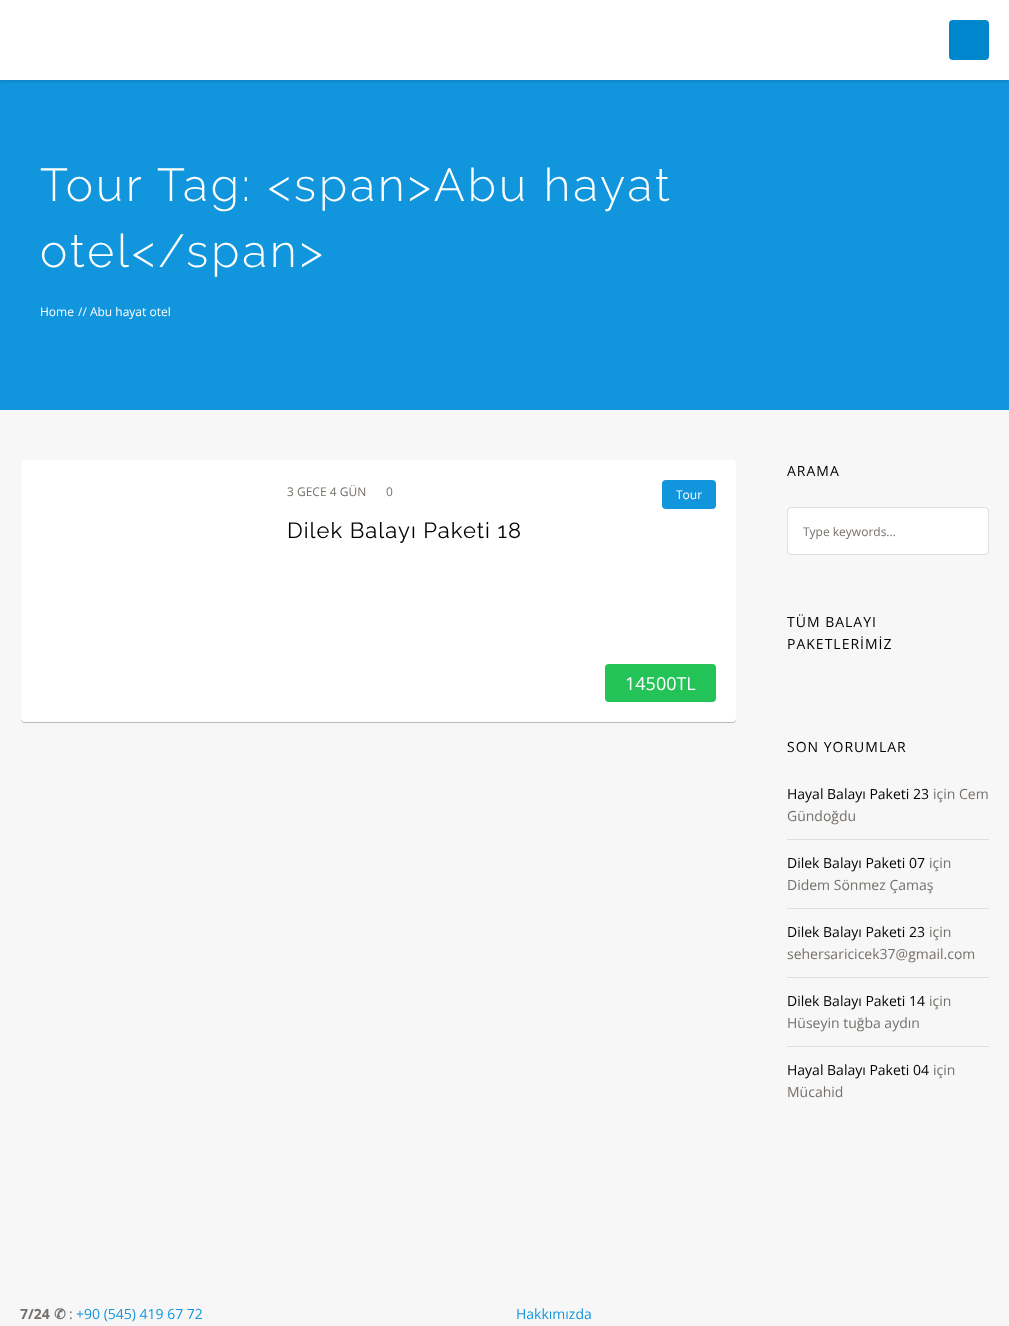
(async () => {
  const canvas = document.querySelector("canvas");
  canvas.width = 1009;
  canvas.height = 1326;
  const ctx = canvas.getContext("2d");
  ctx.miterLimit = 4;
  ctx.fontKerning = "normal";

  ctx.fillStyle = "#f7f7f7";
  ctx.fillRect(0, 0, 1009, 1326);
  ctx.fillStyle = "#1196dd";
  ctx.fillRect(0, 80, 1009, 330);
  ctx.fillStyle = "rgba(0, 0, 0, 0.1)";
  ctx.filter = "blur(1px)";
  ctx.beginPath();
  ctx.rect(0, 2, 1009, 80);
  ctx.fill();
  ctx.filter = "none";
  ctx.fillStyle = "#ffffff";
  ctx.fillRect(0, 0, 1009, 80);
  ctx.fillStyle = "#0086cd";
  ctx.beginPath();
  ctx.roundRect(949, 20, 40, 40, 4);
  ctx.fill();
  ctx.fillStyle = "rgba(0, 0, 0, 0.25)";
  ctx.filter = "blur(0.5px)";
  ctx.beginPath();
  ctx.roundRect(21, 461, 715, 262, 4);
  ctx.fill();
  ctx.filter = "none";
  ctx.fillStyle = "#ffffff";
  ctx.beginPath();
  ctx.roundRect(21, 460, 715, 262, 4);
  ctx.fill();
  ctx.fillStyle = "#1196dd";
  ctx.beginPath();
  ctx.roundRect(662, 480, 54, 29, 4);
  ctx.fill();
  ctx.fillStyle = "#24c358";
  ctx.beginPath();
  ctx.roundRect(605, 664, 111, 38, 4);
  ctx.fill();
  ctx.fillStyle = "#ffffff";
  ctx.beginPath();
  ctx.roundRect(787.5, 507.5, 201, 47, 3.5);
  ctx.fill();
  ctx.strokeStyle = "#dfdfdf";
  ctx.stroke();
  for (const [x, y, w, h, color] of [
    [787, 839, 202, 1, "#dfdfdf"],
    [787, 908, 202, 1, "#dfdfdf"],
    [787, 977, 202, 1, "#dfdfdf"],
    [787, 1046, 202, 1, "#dfdfdf"],
  ]) {
    ctx.fillStyle = color;
    ctx.fillRect(x, y, w, h);
  }
  ctx.letterSpacing = "3px";
  ctx.font = "300 46px Raleway";
  ctx.fillStyle = "#ffffff";
  ctx.fillText("Tour Tag: <span>Abu hayat", 40, 201);
  ctx.fillText("otel<\/span>", 40, 267);
  ctx.letterSpacing = "0px";
  ctx.font = "12px Open Sans";
  ctx.fillText("Home", 40, 316);
  ctx.fillText("// Abu hayat otel", 78, 316);
  ctx.fillStyle = "#75706b";
  ctx.fillText("3 GECE 4 GÜN", 287, 496);
  ctx.fillText("0", 386, 496);
  ctx.fillStyle = "#ffffff";
  ctx.fillText("Tour", 676, 499);
  ctx.letterSpacing = "1px";
  ctx.font = "22px Raleway";
  ctx.fillStyle = "#000000";
  ctx.fillText("Dilek Balayı Paketi 18", 287, 538);
  ctx.letterSpacing = "0px";
  ctx.font = "18px Open Sans";
  ctx.fillStyle = "#ffffff";
  ctx.fillText("14500TL", 625, 690);
  ctx.letterSpacing = "1px";
  ctx.font = "14px Open Sans";
  ctx.fillStyle = "#000000";
  ctx.fillText("ARAMA", 787, 476);
  ctx.letterSpacing = "0px";
  ctx.font = "12px Open Sans";
  ctx.fillStyle = "#75706b";
  ctx.fillText("Type keywords...", 803, 536);
  ctx.letterSpacing = "1px";
  ctx.font = "14px Open Sans";
  ctx.fillStyle = "#000000";
  for (const [text, x, y] of [
    ["TÜM BALAYI", 787, 627],
    ["PAKETLERİMİZ", 787, 649],
    ["SON YORUMLAR", 787, 752],
  ]) {
    ctx.fillText(text, x, y);
  }
  ctx.letterSpacing = "0px";
  ctx.fillText("Hayal Balayı Paketi 23", 787, 799);
  ctx.fillStyle = "#75706b";
  ctx.fillText("için Cem", 933, 799);
  ctx.fillText("Gündoğdu", 787, 821);
  ctx.fillStyle = "#000000";
  ctx.fillText("Dilek Balayı Paketi 07", 787, 868);
  ctx.fillStyle = "#75706b";
  ctx.fillText("için", 929, 868);
  ctx.fillText("Didem Sönmez Çamaş", 787, 890);
  ctx.fillStyle = "#000000";
  ctx.fillText("Dilek Balayı Paketi 23", 787, 937);
  ctx.fillStyle = "#75706b";
  ctx.fillText("için", 929, 937);
  ctx.fillText("sehersaricicek37@gmail.com", 787, 959);
  ctx.fillStyle = "#000000";
  ctx.fillText("Dilek Balayı Paketi 14", 787, 1006);
  ctx.fillStyle = "#75706b";
  ctx.fillText("için", 929, 1006);
  ctx.fillText("Hüseyin tuğba aydın", 787, 1028);
  ctx.fillStyle = "#000000";
  ctx.fillText("Hayal Balayı Paketi 04", 787, 1075);
  ctx.fillStyle = "#75706b";
  ctx.fillText("için", 933, 1075);
  ctx.fillText("Mücahid", 787, 1097);
  ctx.font = "bold 14px Open Sans";
  ctx.fillText("7/24", 20, 1319);
  ctx.font = "bold 14px DejaVu Sans";
  ctx.fillText("✆", 54, 1319);
  ctx.font = "14px Open Sans";
  ctx.fillText(":", 69, 1319);
  ctx.fillStyle = "#1196dd";
  ctx.fillText("+90 (545) 419 67 72", 76, 1319);
  ctx.fillText("Hakkımızda", 516, 1319);
})();
